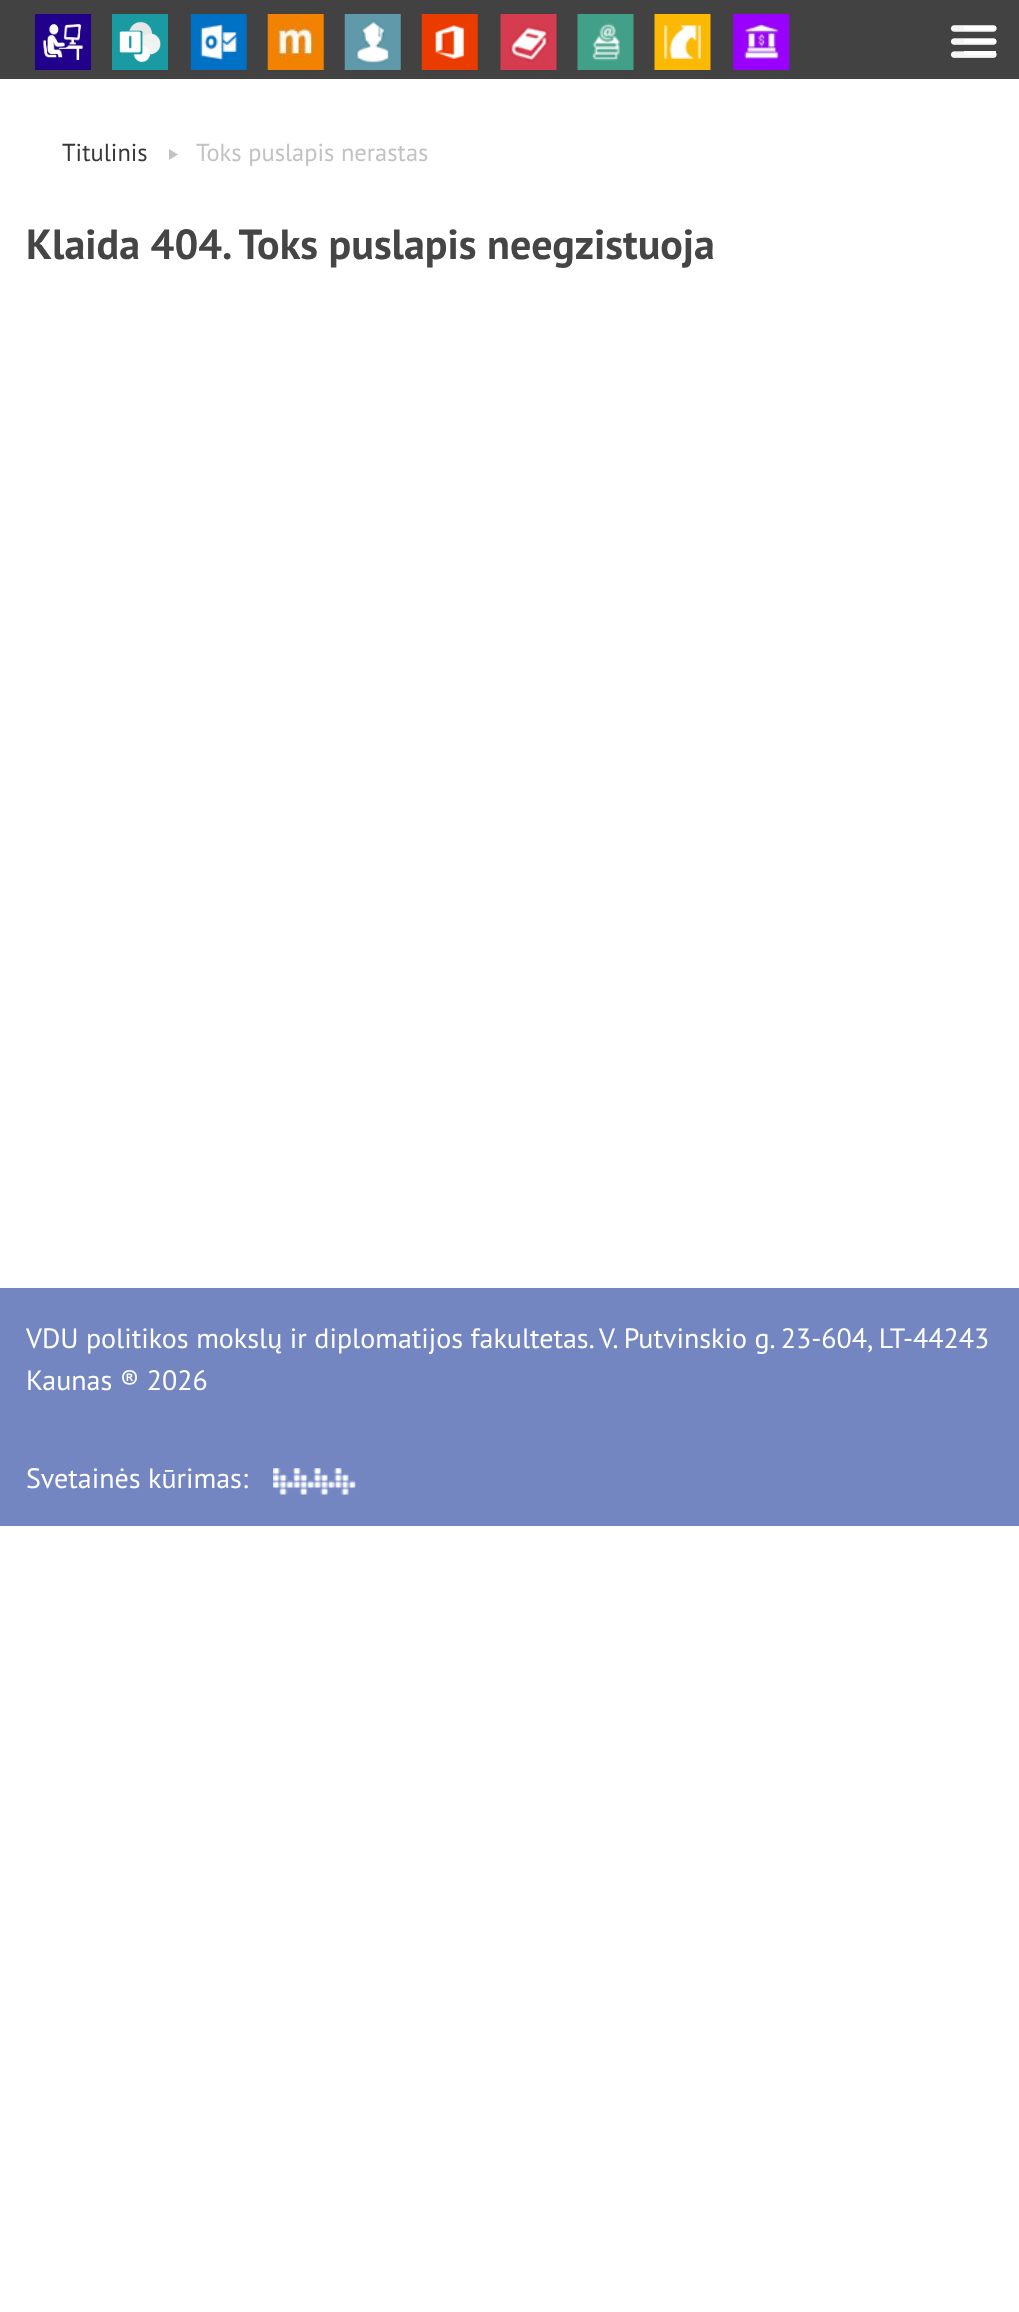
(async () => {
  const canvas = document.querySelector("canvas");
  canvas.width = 1019;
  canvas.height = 2312;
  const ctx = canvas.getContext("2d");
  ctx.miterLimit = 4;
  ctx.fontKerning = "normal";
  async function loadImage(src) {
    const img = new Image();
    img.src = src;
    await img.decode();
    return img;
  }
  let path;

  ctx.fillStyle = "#ffffff";
  ctx.fillRect(0, 0, 1019, 2312);
  ctx.fillStyle = "#424242";
  ctx.fillRect(0, 0, 1019, 79);
  ctx.drawImage(await loadImage("img/1.png"), 950, 25, 47, 33);
  for (const [x, y, w, h, color] of [
    [964, 51, 32, 4, "#ffffff"],
    [964, 39, 32, 4, "#ffffff"],
    [964, 26, 32, 4, "#ffffff"],
  ]) {
    ctx.fillStyle = color;
    ctx.fillRect(x, y, w, h);
  }
  ctx.drawImage(await loadImage("img/2.png"), 35, 14, 56, 56);
  ctx.drawImage(await loadImage("img/3.png"), 112, 14, 56, 56);
  ctx.drawImage(await loadImage("img/4.png"), 190, 14, 57, 56);
  ctx.drawImage(await loadImage("img/5.png"), 267, 14, 57, 56);
  ctx.drawImage(await loadImage("img/6.png"), 344, 14, 57, 56);
  ctx.drawImage(await loadImage("img/7.png"), 421, 14, 57, 56);
  ctx.drawImage(await loadImage("img/8.png"), 500, 14, 57, 56);
  ctx.drawImage(await loadImage("img/9.png"), 577, 14, 57, 56);
  ctx.drawImage(await loadImage("img/10.png"), 654, 14, 57, 56);
  ctx.drawImage(await loadImage("img/11.png"), 733, 14, 57, 56);
  ctx.fillStyle = "#c2c2c2";
  path = new Path2D("M169 149L178 154.5L169 160Z");
  ctx.fill(path);
  ctx.fillStyle = "#7386c2";
  ctx.fillRect(0, 1288, 1019, 238);
  ctx.drawImage(await loadImage("img/12.png"), 273, 1468, 83, 27);
  ctx.font = "24.5px PT Sans";
  ctx.fillStyle = "#383838";
  ctx.fillText("Titulinis", 62, 161);
  ctx.fillStyle = "#c2c2c2";
  ctx.fillText("Toks puslapis nerastas", 196, 161);
  ctx.font = "bold 42px PT Sans";
  ctx.fillStyle = "#454545";
  ctx.fillText("Klaida 404. Toks puslapis neegzistuoja", 26, 259);
  ctx.font = "28px PT Sans";
  ctx.fillStyle = "#ffffff";
  for (const [text, x, y] of [
    ["VDU politikos mokslų ir diplomatijos fakultetas. V. Putvinskio g. 23-604, LT-44243", 26, 1348],
    ["Kaunas ® 2026", 26, 1390],
    ["Svetainės kūrimas:", 26, 1488],
  ]) {
    ctx.fillText(text, x, y);
  }
})();
